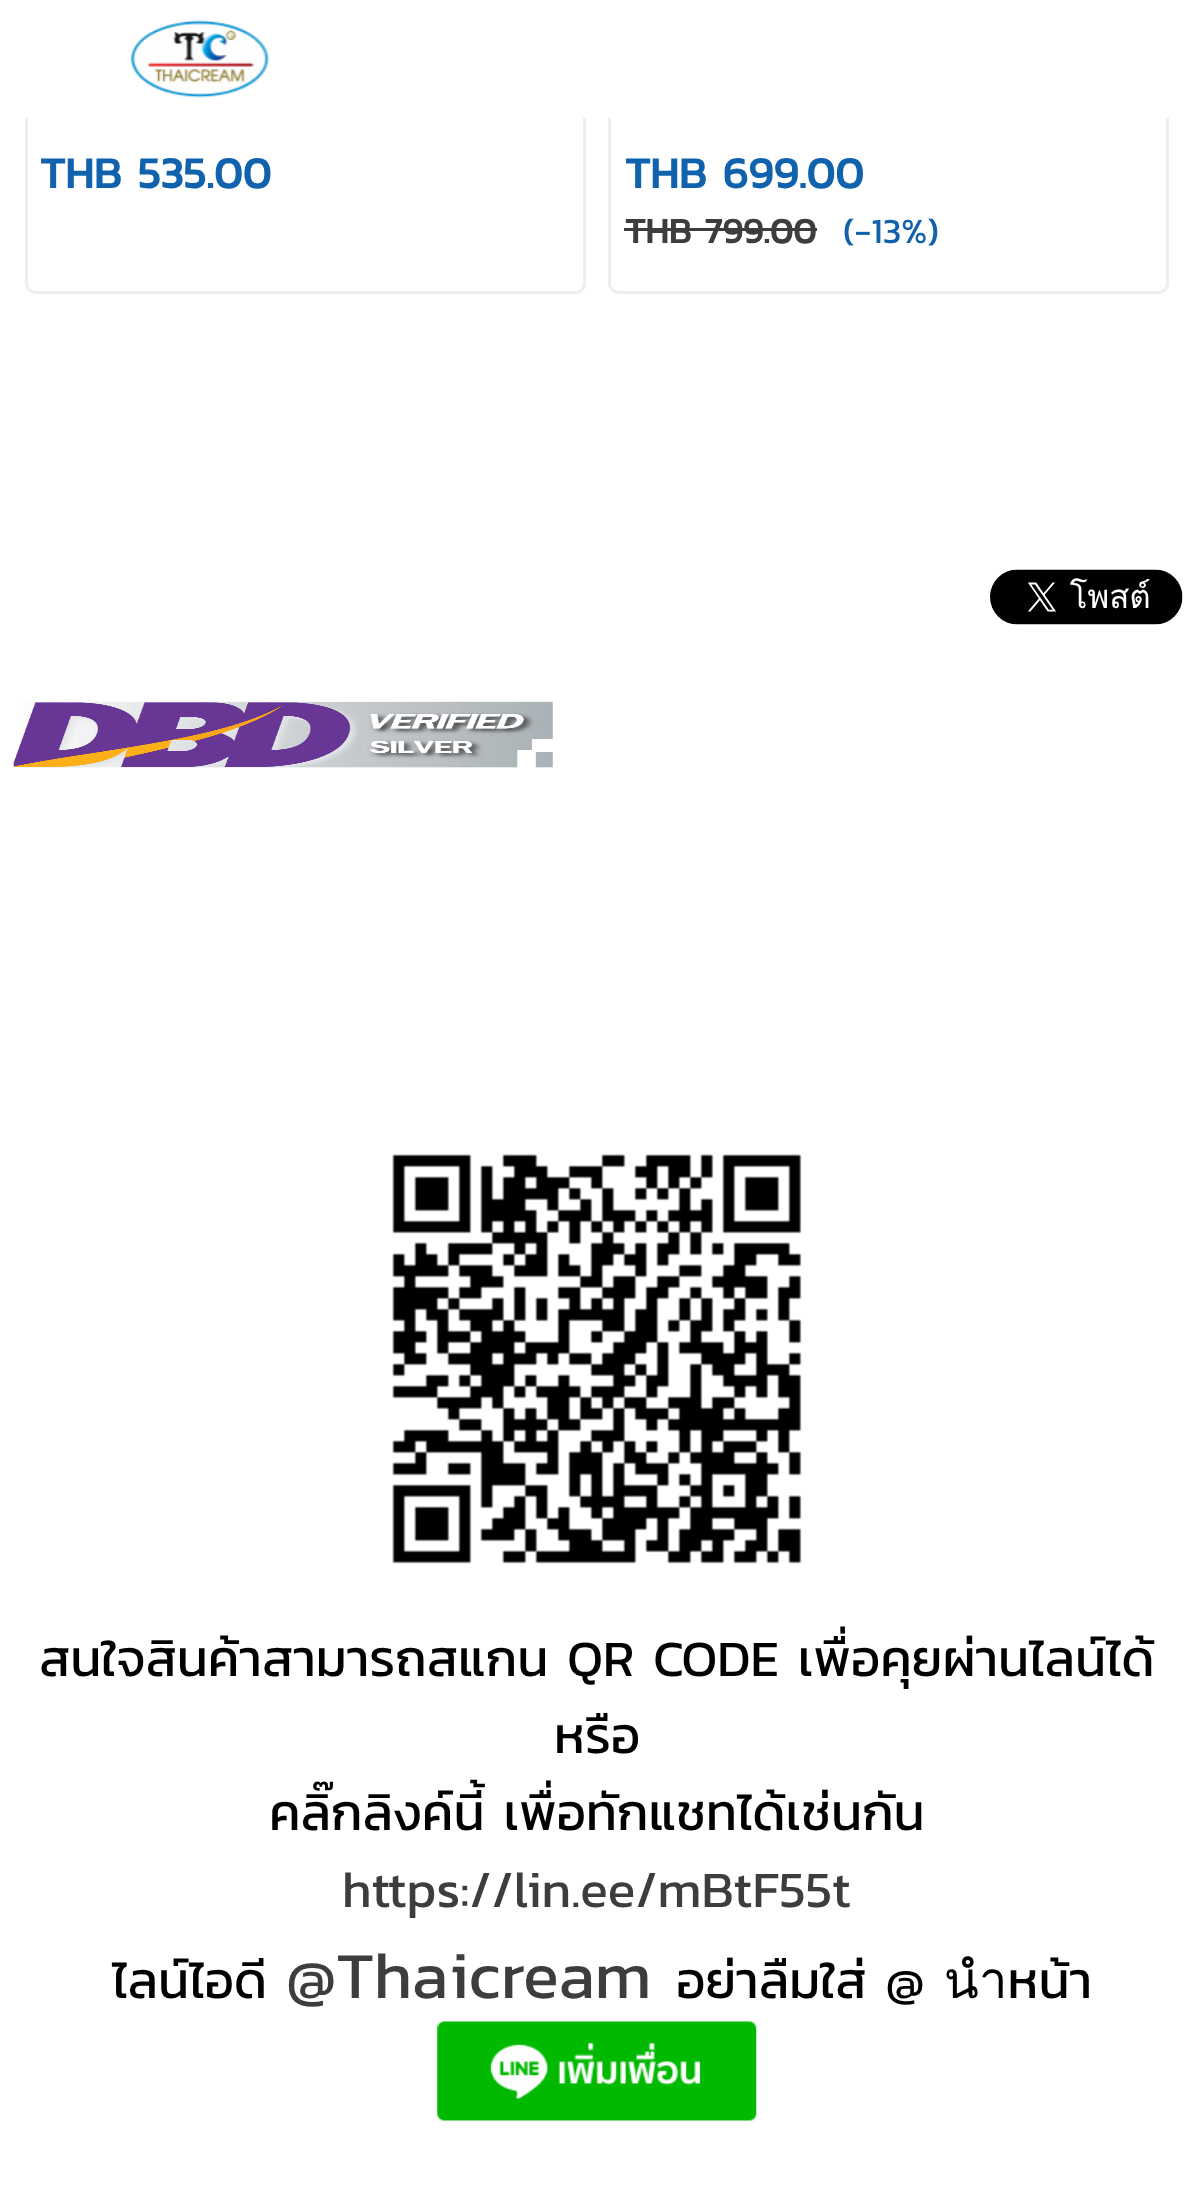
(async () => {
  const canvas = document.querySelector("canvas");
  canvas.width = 1192;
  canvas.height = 2197;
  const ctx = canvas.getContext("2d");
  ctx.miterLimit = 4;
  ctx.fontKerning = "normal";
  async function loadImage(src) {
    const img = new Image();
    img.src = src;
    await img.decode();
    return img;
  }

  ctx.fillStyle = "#ffffff";
  ctx.fillRect(0, 0, 1192, 2197);
  ctx.beginPath();
  ctx.roundRect(26.5, -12.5, 558, 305, 9.5);
  ctx.strokeStyle = "#eeeeee";
  ctx.lineWidth = 3;
  ctx.stroke();
  ctx.beginPath();
  ctx.roundRect(609.5, -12.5, 558, 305, 9.5);
  ctx.stroke();
  ctx.fillRect(25, 0, 1144, 118);
  ctx.drawImage(await loadImage("img/1.png"), 130, 20, 140, 78);
  ctx.fillStyle = "#3d3d3d";
  ctx.fillRect(624, 228, 193, 3);
  ctx.drawImage(await loadImage("img/2.png"), 990, 569, 193, 56);
  ctx.drawImage(await loadImage("img/3.png"), 13, 701, 540, 67);
  ctx.drawImage(await loadImage("img/4.png"), 392, 1154, 410, 410);
  ctx.drawImage(await loadImage("img/5.png"), 437, 2021, 320, 100);
  ctx.font = "bold 44px Kanit";
  ctx.fillStyle = "#1162ad";
  ctx.fillText("THB 535.00", 40, 188);
  ctx.fillText("THB 699.00", 625, 188);
  ctx.font = "bold 35.75px Kanit";
  ctx.fillStyle = "#3d3d3d";
  ctx.fillText("THB 799.00", 625, 243);
  ctx.font = "35.75px Kanit";
  ctx.fillStyle = "#1162ad";
  ctx.fillText("(-13%)", 843, 243);
  ctx.font = "51.3px Kanit";
  ctx.fillStyle = "#000000";
  for (const [text, x, y] of [
    ["สนใจสินค้าสามารถสแกน QR CODE เพื่อคุยผ่านไลน์ได้", 39, 1676],
    ["หรือ", 554, 1753],
    ["คลิ๊กลิงค์นี้ เพื่อทักแชทได้เช่นกัน", 269, 1830],
  ]) {
    ctx.fillText(text, x, y);
  }
  ctx.fillStyle = "#3d3d3d";
  ctx.fillText("https://lin.ee/mBtF55t", 342, 1907);
  ctx.fillStyle = "#000000";
  ctx.fillText("ไลน์ไอดี", 112, 1998);
  ctx.font = "66px Kanit";
  ctx.fillStyle = "#3d3d3d";
  ctx.fillText("@Thaicream", 286, 1998);
  ctx.font = "51.3px Kanit";
  ctx.fillStyle = "#000000";
  ctx.fillText("อย่าลืมใส่ @ นำหน้า", 676, 1998);
})();
